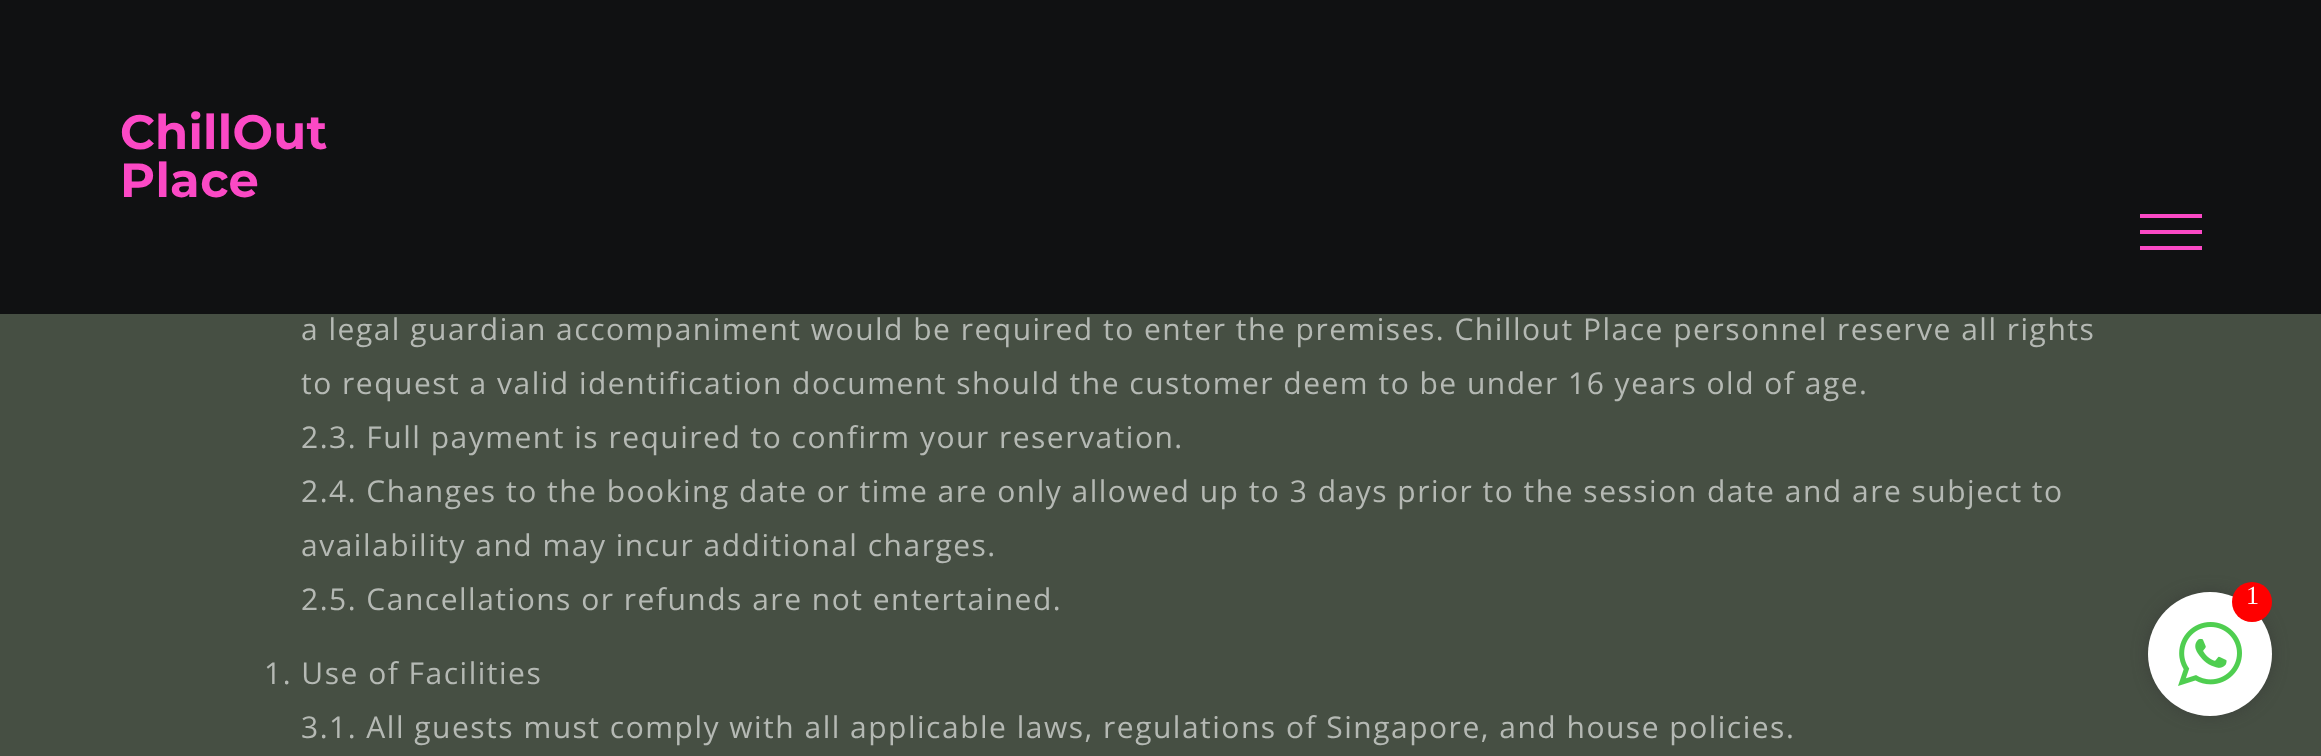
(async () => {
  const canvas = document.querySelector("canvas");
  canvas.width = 2321;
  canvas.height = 756;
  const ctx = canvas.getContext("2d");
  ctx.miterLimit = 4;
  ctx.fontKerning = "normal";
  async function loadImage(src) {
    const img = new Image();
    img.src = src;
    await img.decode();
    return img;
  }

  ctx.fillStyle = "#464f43";
  ctx.fillRect(0, 0, 2321, 756);
  for (const [x, y, w, h, color] of [
    [0, 0, 2321, 314, "#101112"],
    [2140, 230, 62, 4, "#fb49c5"],
    [2140, 214, 62, 4, "#fb49c5"],
    [2140, 246, 62, 4, "#fb49c5"],
  ]) {
    ctx.fillStyle = color;
    ctx.fillRect(x, y, w, h);
  }
  ctx.fillStyle = "#333333";
  ctx.filter = "blur(10px)";
  ctx.beginPath();
  ctx.roundRect(2154, 598, 112, 112, 56);
  ctx.fill();
  ctx.filter = "none";
  ctx.fillStyle = "#ffffff";
  ctx.beginPath();
  ctx.arc(2210, 654, 62, 0, Math.PI * 2);
  ctx.fill();
  ctx.fillStyle = "#ff0000";
  ctx.beginPath();
  ctx.arc(2252, 602, 20, 0, Math.PI * 2);
  ctx.fill();
  ctx.drawImage(await loadImage("img/1.png"), 2178, 622, 64, 64);
  ctx.letterSpacing = "0.25px";
  ctx.font = "bold 48px Montserrat";
  ctx.fillStyle = "#fb49c5";
  ctx.fillText("ChillOut", 120, 149);
  ctx.fillText("Place", 120, 197);
  ctx.letterSpacing = "1.5px";
  ctx.font = "30px Open Sans";
  ctx.fillStyle = "#b5b9b4";
  for (const [text, x, y] of [
    ["a legal guardian accompaniment would be required to enter the premises. Chillout Place personnel reserve all rights", 301, 340],
    ["to request a valid identification document should the customer deem to be under 16 years old of age.", 301, 394],
    ["2.3. Full payment is required to confirm your reservation.", 301, 448],
    ["2.4. Changes to the booking date or time are only allowed up to 3 days prior to the session date and are subject to", 301, 502],
    ["availability and may incur additional charges.", 301, 556],
    ["2.5. Cancellations or refunds are not entertained.", 301, 610],
    ["1. Use of Facilities", 264, 684],
    ["3.1. All guests must comply with all applicable laws, regulations of Singapore, and house policies.", 301, 738],
  ]) {
    ctx.fillText(text, x, y);
  }
  ctx.letterSpacing = "0px";
  ctx.font = "26px Liberation Serif";
  ctx.fillStyle = "#ffffff";
  ctx.fillText("1", 2246, 604);
})();
